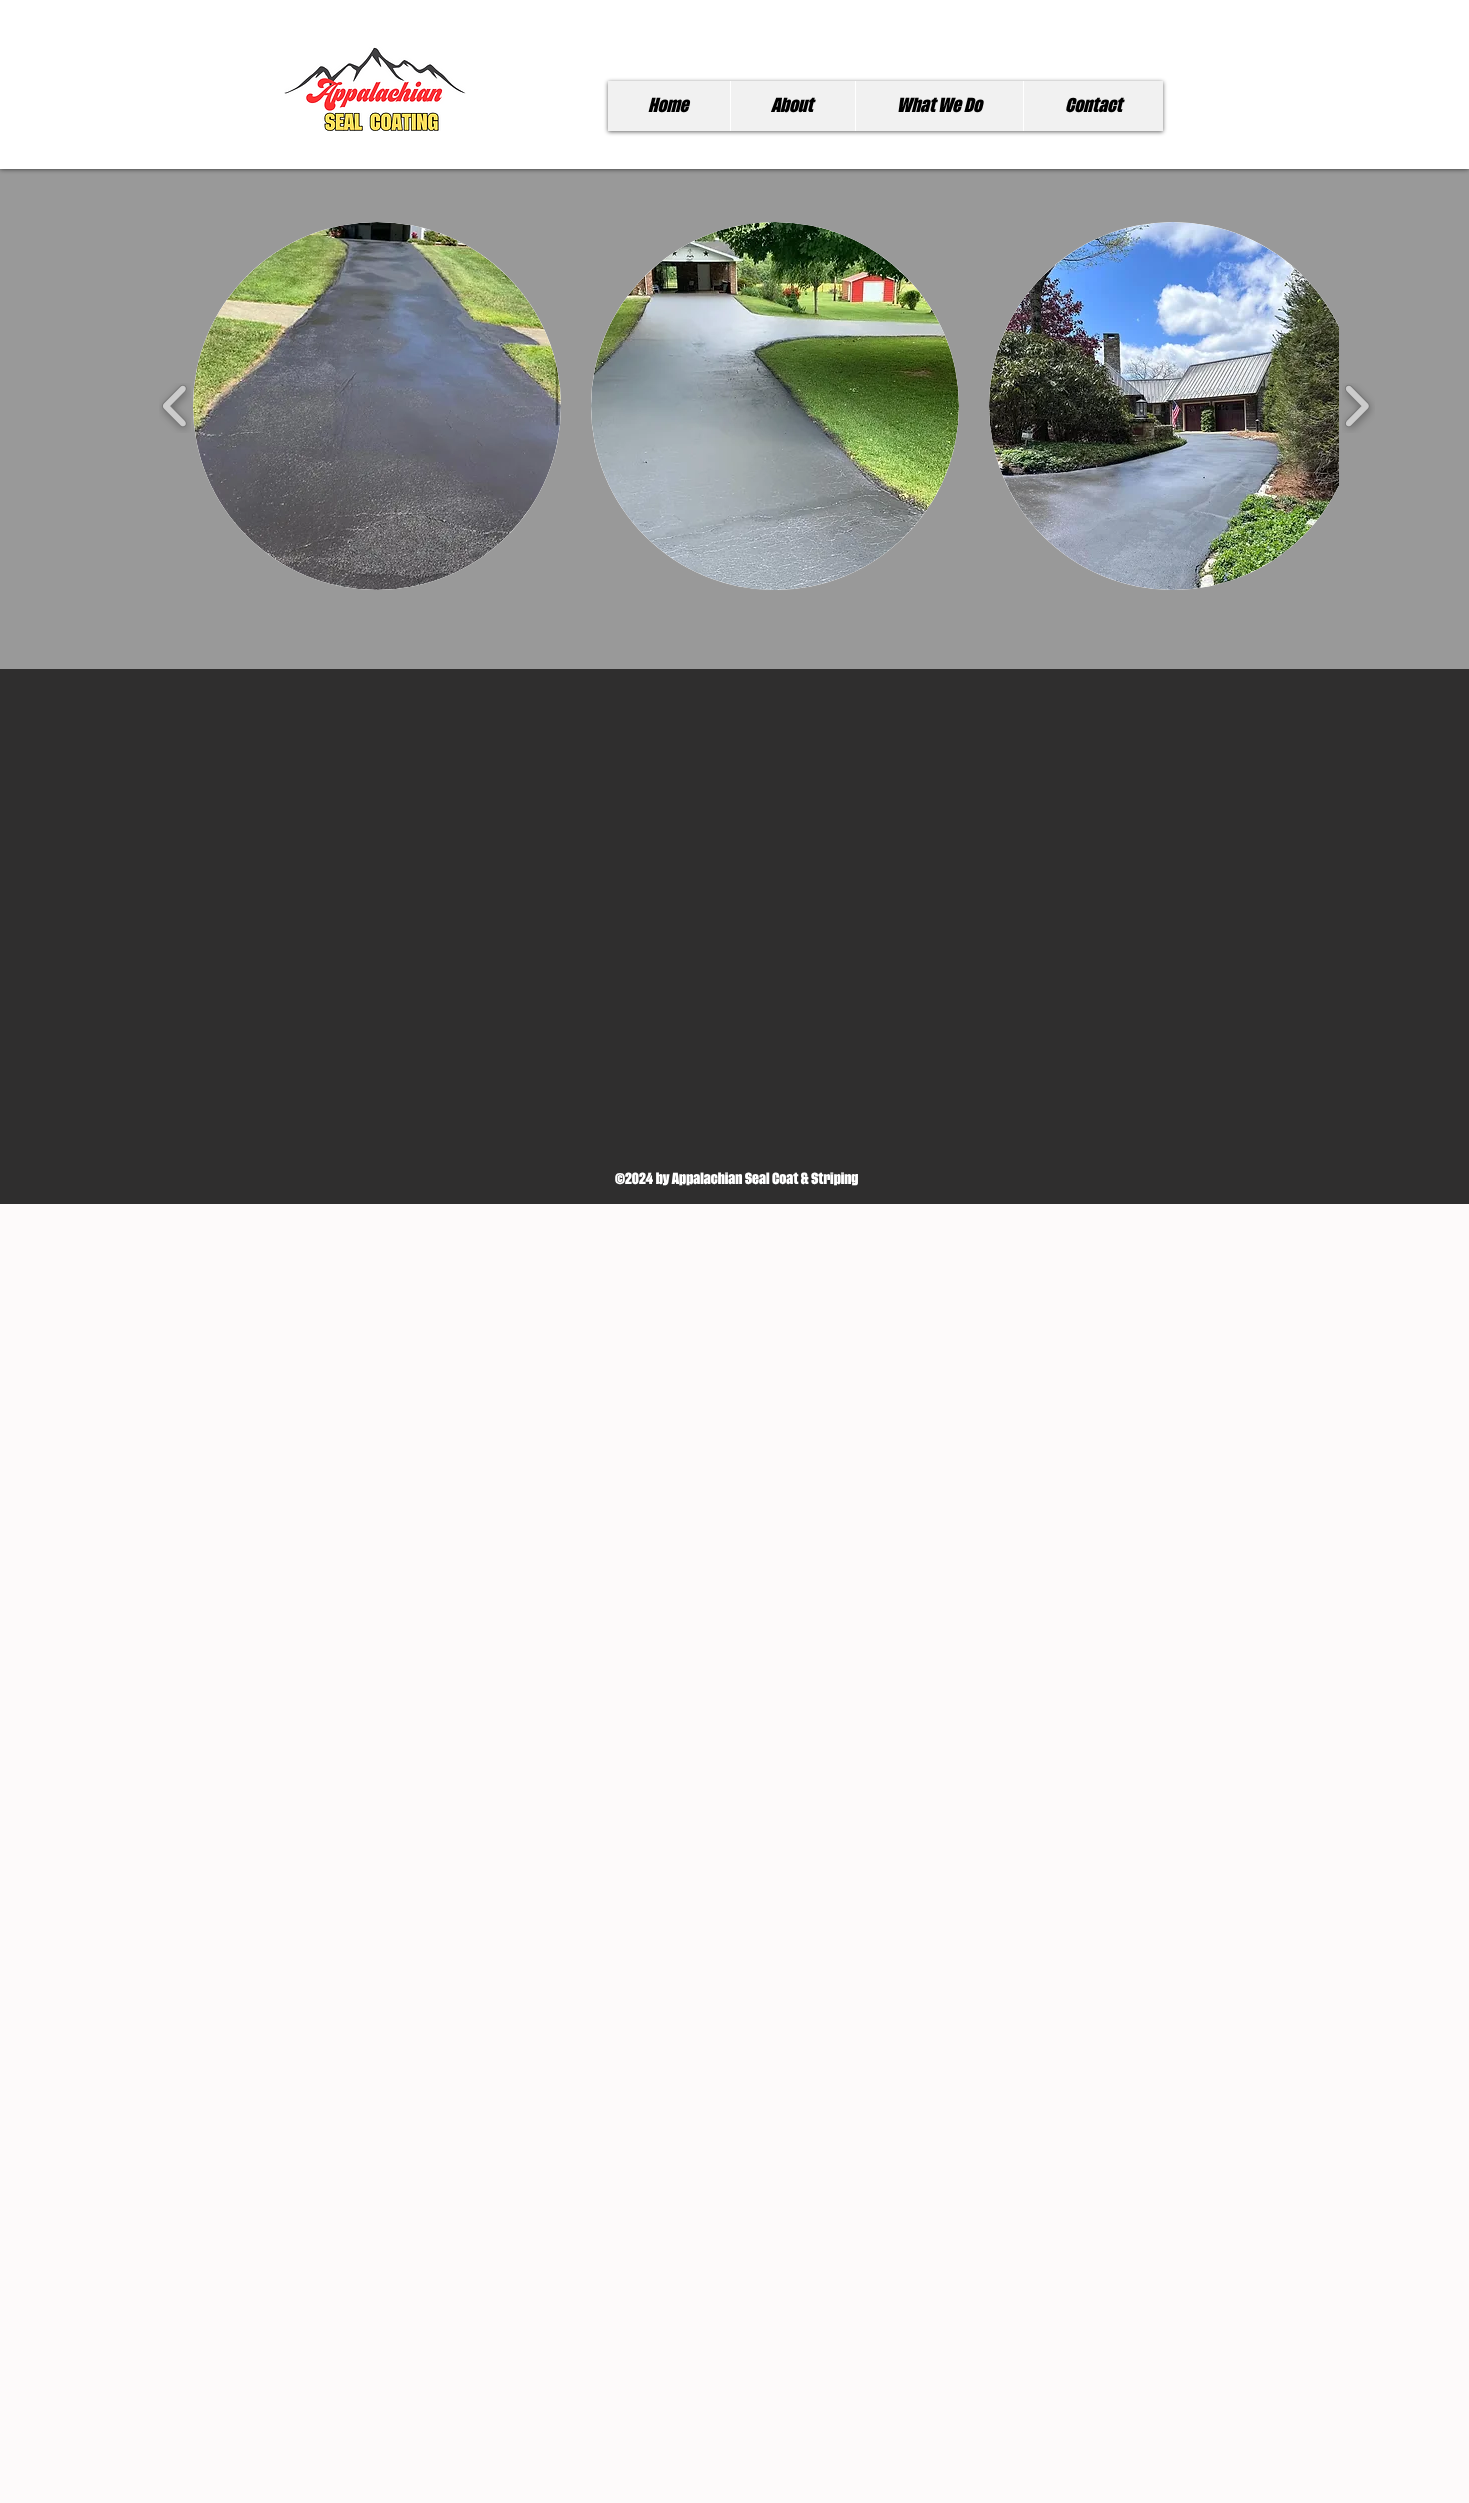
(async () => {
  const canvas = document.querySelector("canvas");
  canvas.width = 1469;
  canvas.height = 2503;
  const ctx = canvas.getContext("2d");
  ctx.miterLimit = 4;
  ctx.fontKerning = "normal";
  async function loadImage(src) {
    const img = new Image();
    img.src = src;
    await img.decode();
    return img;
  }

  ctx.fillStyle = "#fdfafa";
  ctx.fillRect(0, 0, 1469, 2503);
  ctx.fillStyle = "#999999";
  ctx.fillRect(0, 169, 1469, 500);
  ctx.fillStyle = "rgba(0, 0, 0, 0.7)";
  ctx.filter = "blur(2.5px)";
  ctx.beginPath();
  ctx.rect(0, 0, 1469, 169);
  ctx.fill();
  ctx.filter = "none";
  ctx.fillStyle = "#ffffff";
  ctx.fillRect(0, 0, 1469, 169);
  ctx.drawImage(await loadImage("img/1.png"), 284, 47, 182, 84);
  ctx.fillStyle = "rgba(0, 0, 0, 0.6)";
  ctx.filter = "blur(2px)";
  ctx.beginPath();
  ctx.rect(608, 82, 555, 50);
  ctx.fill();
  ctx.filter = "none";
  for (const [x, y, w, h, color] of [
    [608, 81, 555, 50, "#f1f1f1"],
    [730, 81, 1, 50, "#ffffff"],
    [855, 81, 1, 50, "#ffffff"],
    [1023, 81, 1, 50, "#ffffff"],
  ]) {
    ctx.fillStyle = color;
    ctx.fillRect(x, y, w, h);
  }
  ctx.drawImage(await loadImage("img/2.png"), 159, 383, 32, 50);
  ctx.beginPath();
  ctx.arc(377, 406, 184, 0, Math.PI * 2);
  ctx.fill();
  ctx.drawImage(await loadImage("img/3.png"), 193, 222, 368, 368);
  ctx.beginPath();
  ctx.arc(775, 406, 184, 0, Math.PI * 2);
  ctx.fill();
  ctx.drawImage(await loadImage("img/4.png"), 591, 222, 368, 368);
  ctx.save();
  ctx.beginPath();
  ctx.rect(193, 222, 1146, 368);
  ctx.clip();
  ctx.beginPath();
  ctx.arc(1173, 406, 184, 0, Math.PI * 2);
  ctx.fill();
  ctx.restore();
  ctx.drawImage(await loadImage("img/5.png"), 989, 222, 350, 368);
  ctx.drawImage(await loadImage("img/6.png"), 1342, 383, 33, 50);
  ctx.fillStyle = "#2f2e2e";
  ctx.fillRect(0, 669, 1469, 535);
  ctx.font = "italic bold 15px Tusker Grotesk";
  ctx.fillStyle = "#000000";
  for (const [text, x, y] of [
    ["Home", 648, 112],
    ["About", 771, 112],
    ["What We Do", 897, 112],
    ["Contact", 1065, 112],
  ]) {
    ctx.fillText(text, x, y);
  }
  ctx.font = "bold 12px Tusker Grotesk";
  ctx.fillStyle = "#ffffff";
  ctx.fillText("©2024 by Appalachian Seal Coat & Striping", 615, 1184);
})();
